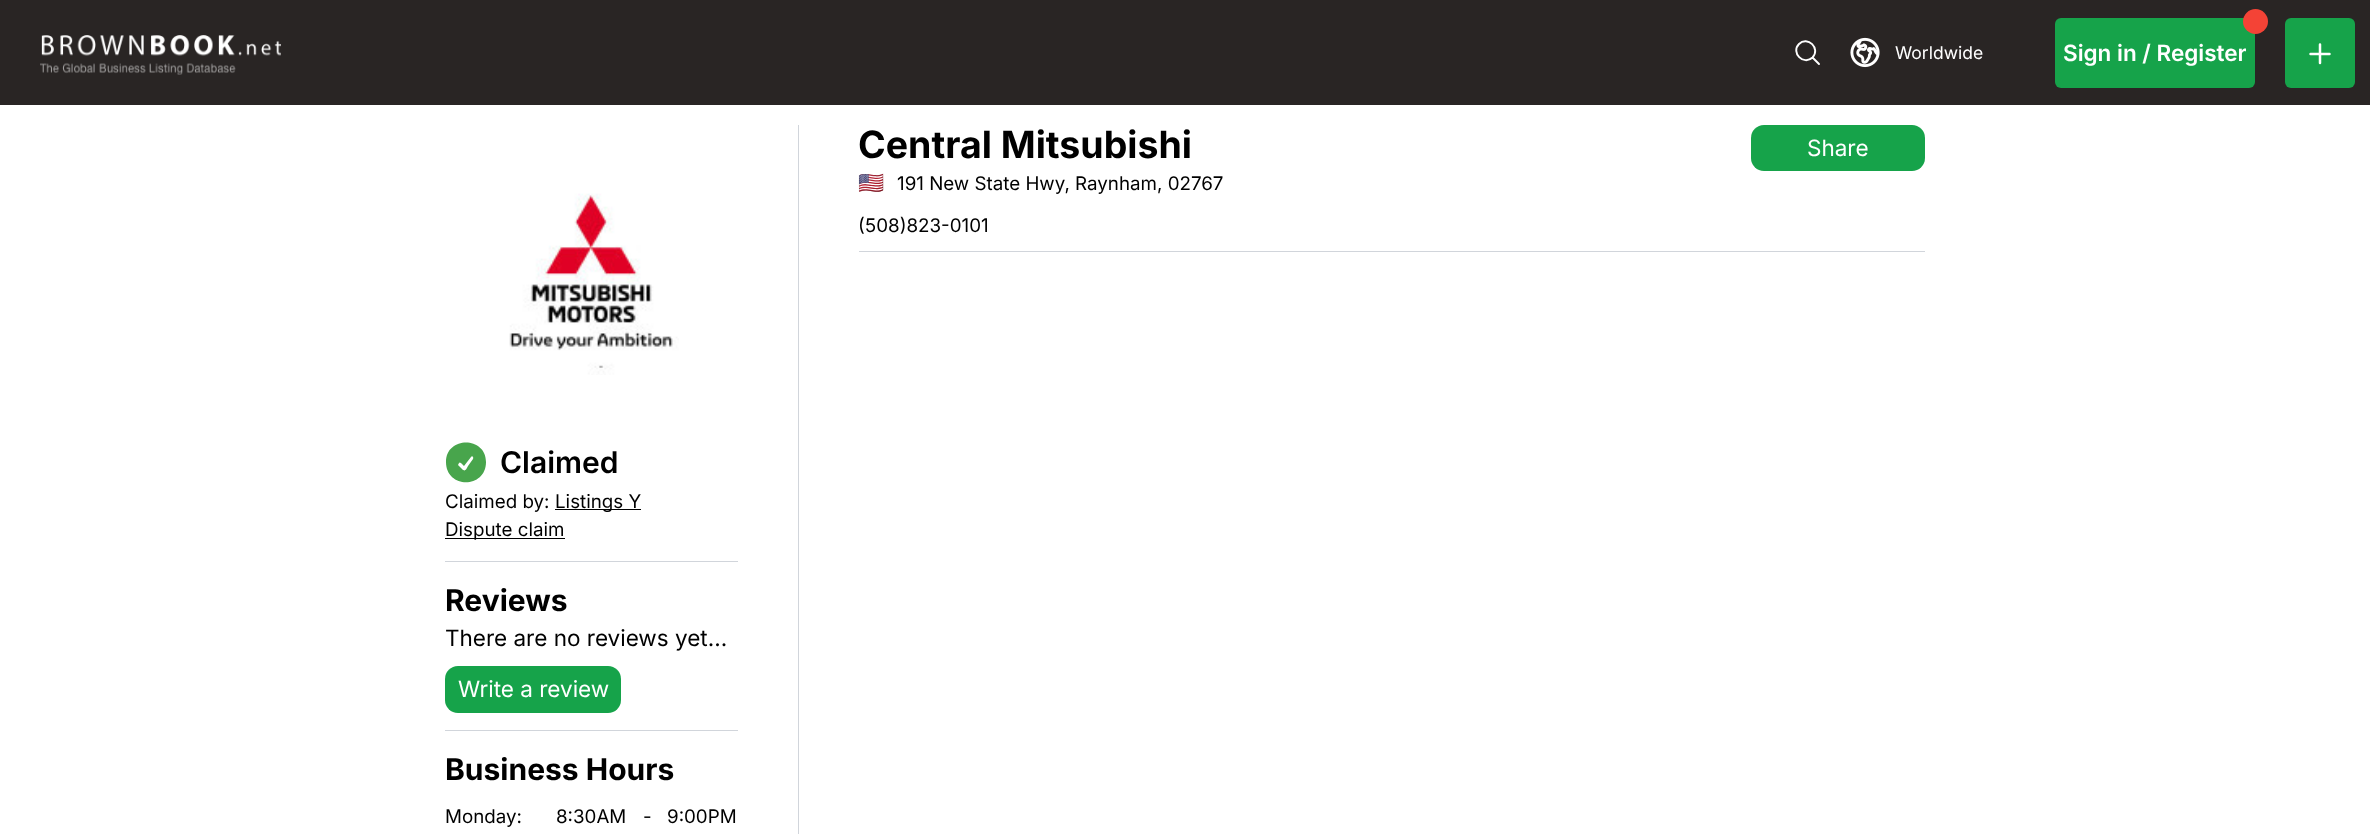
(async () => {
  const canvas = document.querySelector("canvas");
  canvas.width = 2370;
  canvas.height = 834;
  const ctx = canvas.getContext("2d");
  ctx.miterLimit = 4;
  ctx.fontKerning = "normal";
  async function loadImage(src) {
    const img = new Image();
    img.src = src;
    await img.decode();
    return img;
  }
  let path;

  ctx.fillStyle = "#ffffff";
  ctx.fillRect(0, 0, 2370, 834);
  ctx.fillStyle = "#292524";
  ctx.fillRect(0, 0, 2370, 105);
  ctx.drawImage(await loadImage("img/1.png"), 40, 35, 241, 40);
  path = new Path2D("M1819 64L1812.5 57.5M1812.5 57.5C1821 48.5 1807.5 35.5 1799 44C1790.5 52.5 1803.5 66 1812.5 57.5Z");
  ctx.strokeStyle = "#ffffff";
  ctx.lineWidth = 1.9;
  ctx.lineCap = "round";
  ctx.lineJoin = "round";
  ctx.stroke(path);
  ctx.drawImage(await loadImage("img/2.png"), 1850, 37, 30, 31);
  ctx.fillStyle = "#16a34a";
  ctx.beginPath();
  ctx.roundRect(2055, 18, 200, 70, 6);
  ctx.fill();
  ctx.fillStyle = "#f44336";
  ctx.beginPath();
  ctx.arc(2255.5, 21.5, 12.5, 0, Math.PI * 2);
  ctx.fill();
  ctx.fillStyle = "#16a34a";
  ctx.beginPath();
  ctx.roundRect(2285, 18, 70, 70, 6);
  ctx.fill();
  path = new Path2D("M2320 44.5V63M2329.5 54H2310.5");
  ctx.lineWidth = 2.5;
  ctx.stroke(path);
  ctx.fillStyle = "#d1d5db";
  ctx.fillRect(798, 125, 1, 709);
  ctx.fillStyle = "#16a34a";
  ctx.beginPath();
  ctx.roundRect(1751, 125, 174, 46, 13);
  ctx.fill();
  ctx.fillStyle = "#d1d5db";
  ctx.fillRect(859, 251, 1066, 1);
  ctx.drawImage(await loadImage("img/3.png"), 509, 193, 170, 182);
  ctx.fillStyle = "#48a54c";
  path = new Path2D("M446 462C446 436 486 436 486 462C486 489 446 489 446 462ZM473 459C474 457 472 455 471 457L464 466C463 465 460 461 459 463L458 465L462 469C465 472 466 470 468 466Z");
  ctx.fill(path, "evenodd");
  for (const [x, y, w, h, color] of [
    [555, 509, 86, 1, "#000000"],
    [445, 538, 120, 1, "#000000"],
    [445, 561, 293, 1, "#d1d5db"],
  ]) {
    ctx.fillStyle = color;
    ctx.fillRect(x, y, w, h);
  }
  ctx.fillStyle = "#16a34a";
  ctx.beginPath();
  ctx.roundRect(445, 666, 176, 47, 13);
  ctx.fill();
  ctx.fillStyle = "#d1d5db";
  ctx.fillRect(445, 730, 293, 1);
  ctx.font = "17.5px Inter";
  ctx.fillStyle = "#ffffff";
  ctx.fillText("Worldwide", 1895, 59);
  ctx.font = "600 22.5px Inter";
  ctx.fillText("Sign in / Register", 2063, 61);
  ctx.font = "bold 37.5px Inter";
  ctx.fillStyle = "#000000";
  ctx.fillText("Central Mitsubishi", 858, 158);
  ctx.font = "21px Noto Color Emoji";
  ctx.fillText("🇺🇸", 858, 190);
  ctx.font = "18.75px Inter";
  ctx.fillText("191 New State Hwy, Raynham, 02767", 897, 190);
  ctx.fillText("(508)823-0101", 858, 232);
  ctx.font = "22.5px Inter";
  ctx.fillStyle = "#ffffff";
  ctx.fillText("Share", 1807, 156);
  ctx.font = "600 30px Inter";
  ctx.fillStyle = "#000000";
  ctx.fillText("Claimed", 500, 473);
  ctx.font = "18.75px Inter";
  for (const [text, x, y] of [
    ["Claimed by:", 445, 508],
    ["Listings Y", 555, 508],
    ["Dispute claim", 445, 536],
  ]) {
    ctx.fillText(text, x, y);
  }
  ctx.font = "bold 30px Inter";
  ctx.fillText("Reviews", 445, 611);
  ctx.font = "22.5px Inter";
  ctx.fillText("There are no reviews yet...", 445, 646);
  ctx.fillStyle = "#ffffff";
  ctx.fillText("Write a review", 458, 697);
  ctx.font = "bold 30px Inter";
  ctx.fillStyle = "#000000";
  ctx.fillText("Business Hours", 445, 780);
  ctx.font = "18.75px Inter";
  for (const [text, x, y] of [
    ["Monday:", 445, 823],
    ["8:30AM", 556, 823],
    ["-", 643, 823],
    ["9:00PM", 667, 823],
  ]) {
    ctx.fillText(text, x, y);
  }
})();
